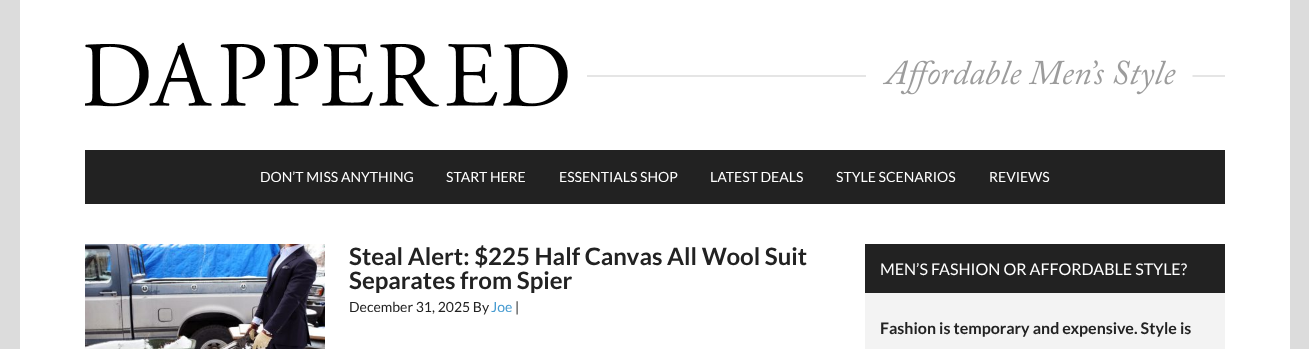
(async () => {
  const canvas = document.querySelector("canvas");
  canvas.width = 1309;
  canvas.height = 349;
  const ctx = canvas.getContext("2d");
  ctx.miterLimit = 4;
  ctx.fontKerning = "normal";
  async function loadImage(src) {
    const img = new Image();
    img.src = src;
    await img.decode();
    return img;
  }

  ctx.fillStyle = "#dcdcdc";
  ctx.fillRect(0, 0, 1309, 349);
  ctx.fillStyle = "#ffffff";
  ctx.fillRect(20, 0, 1270, 349);
  ctx.drawImage(await loadImage("img/1.png"), 85, 42, 1140, 65);
  ctx.fillStyle = "#222222";
  ctx.fillRect(85, 150, 1140, 54);
  ctx.drawImage(await loadImage("img/2.png"), 85, 244, 240, 105);
  ctx.fillStyle = "#f3f3f3";
  ctx.fillRect(865, 293, 360, 56);
  ctx.fillStyle = "#222222";
  ctx.fillRect(865, 244, 360, 49);
  ctx.font = "14px Lato";
  ctx.fillStyle = "#ffffff";
  for (const [text, x, y] of [
    ["DON’T MISS ANYTHING", 260, 182],
    ["START HERE", 446, 182],
    ["ESSENTIALS SHOP", 559, 182],
    ["LATEST DEALS", 710, 182],
    ["STYLE SCENARIOS", 836, 182],
    ["REVIEWS", 989, 182],
  ]) {
    ctx.fillText(text, x, y);
  }
  ctx.font = "bold 24px Lato";
  ctx.fillStyle = "#222222";
  ctx.fillText("Steal Alert: $225 Half Canvas All Wool Suit", 349, 265);
  ctx.fillText("Separates from Spier", 349, 289);
  ctx.font = "14px Lato";
  ctx.fillText("December 31, 2025 By", 349, 312);
  ctx.fillStyle = "#469bd1";
  ctx.fillText("Joe", 491, 312);
  ctx.fillStyle = "#222222";
  ctx.fillText("|", 515, 312);
  ctx.font = "16px Lato";
  ctx.fillStyle = "#ffffff";
  ctx.fillText("MEN’S FASHION OR AFFORDABLE STYLE?", 880, 275);
  ctx.font = "bold 16px Lato";
  ctx.fillStyle = "#222222";
  ctx.fillText("Fashion is temporary and expensive. Style is", 880, 334);
})();
